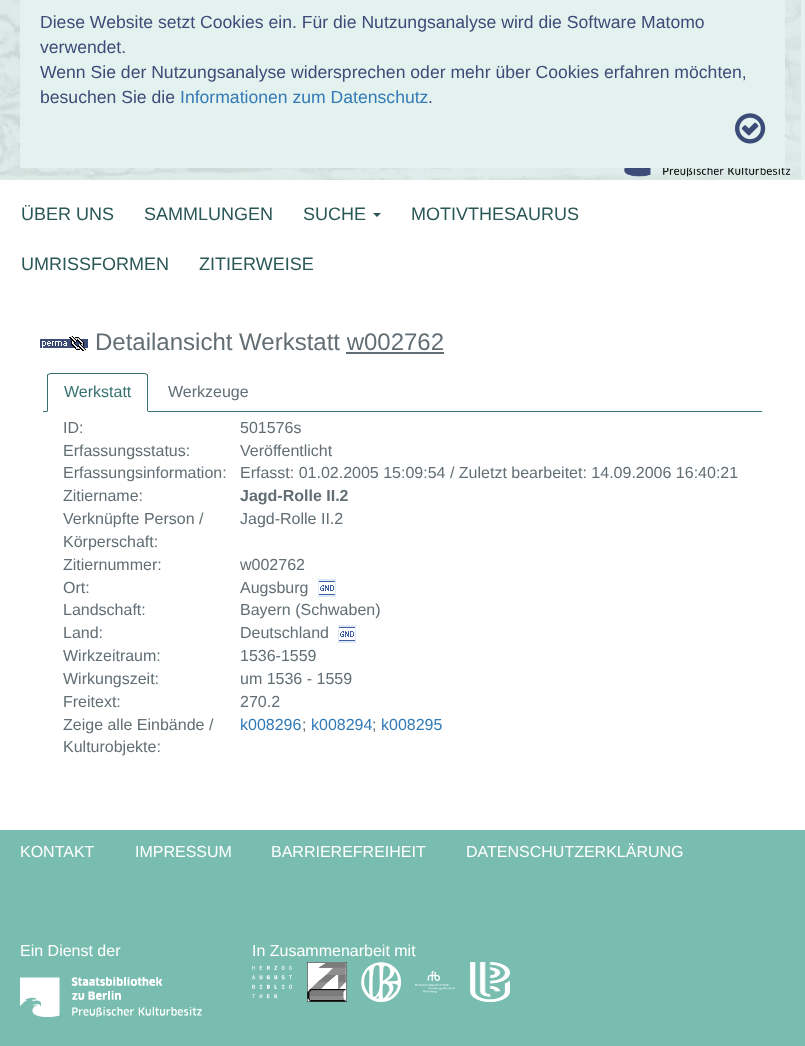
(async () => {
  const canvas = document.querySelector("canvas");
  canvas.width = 805;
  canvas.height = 1046;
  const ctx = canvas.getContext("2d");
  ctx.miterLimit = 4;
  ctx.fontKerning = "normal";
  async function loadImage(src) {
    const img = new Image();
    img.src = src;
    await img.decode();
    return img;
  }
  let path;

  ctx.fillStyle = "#ffffff";
  ctx.fillRect(0, 0, 805, 1046);
  ctx.fillStyle = "#e4f2ef";
  ctx.fillRect(0, 0, 805, 180);
  ctx.drawImage(await loadImage("img/1.png"), 0, 0, 801, 180);
  ctx.fillRect(20, 0, 765, 168);
  ctx.drawImage(await loadImage("img/2.png"), 735, 113, 31, 31);
  ctx.drawImage(await loadImage("img/3.png"), 624, 168, 167, 9);
  ctx.fillStyle = "#295755";
  path = new Path2D("M373 213H381L377 217Z");
  ctx.fill(path);
  ctx.drawImage(await loadImage("img/4.png"), 40, 336, 48, 15);
  ctx.fillStyle = "#626e74";
  ctx.fillRect(346, 352, 98, 2);
  ctx.fillStyle = "#367270";
  ctx.fillRect(43, 411, 719, 1);
  ctx.fillStyle = "#ffffff";
  ctx.beginPath();
  ctx.roundRect(47, 373, 101, 39, [3, 3, 0, 0]);
  ctx.fill();
  ctx.fillStyle = "#367270";
  path = new Path2D("M50 373L48 374L49 375L50 374H129H145L146 375L147 374L145 373Z");
  ctx.fill(path);
  path = new Path2D("M148 412V376C148 375 148 374 147 374L146.5 374.5L147 376V411Z");
  ctx.fill(path);
  ctx.fillStyle = "#ffffff";
  path = new Path2D("M148 412L147 411H48L47 412Z");
  ctx.fill(path);
  ctx.fillStyle = "#367270";
  path = new Path2D("M47 412L48 411V376L48.5 374.5L48 374C47 374 47 375 47 376Z");
  ctx.fill(path);
  ctx.drawImage(await loadImage("img/5.png"), 318, 579, 18, 18);
  ctx.drawImage(await loadImage("img/5.png"), 338, 625, 18, 18);
  ctx.fillStyle = "#79bdb0";
  ctx.fillRect(0, 830, 805, 216);
  ctx.drawImage(await loadImage("img/6.png"), 20, 977, 182, 40);
  ctx.drawImage(await loadImage("img/7.png"), 252, 965, 40, 34);
  ctx.drawImage(await loadImage("img/8.png"), 307, 962, 40, 40);
  ctx.drawImage(await loadImage("img/9.png"), 361, 962, 40, 40);
  ctx.drawImage(await loadImage("img/10.png"), 415, 971, 40, 22);
  ctx.drawImage(await loadImage("img/11.png"), 470, 962, 40, 40);
  ctx.font = "17.6px Liberation Sans";
  ctx.fillStyle = "#3c4b78";
  for (const [text, x, y] of [
    ["Diese Website setzt Cookies ein. Für die Nutzungsanalyse wird die Software Matomo", 40, 28],
    ["verwendet.", 40, 53],
    ["Wenn Sie der Nutzungsanalyse widersprechen oder mehr über Cookies erfahren möchten,", 40, 78],
    ["besuchen Sie die", 40, 103],
  ]) {
    ctx.fillText(text, x, y);
  }
  ctx.fillStyle = "#337ab7";
  ctx.fillText("Informationen zum Datenschutz", 180, 103);
  ctx.fillStyle = "#3c4b78";
  ctx.fillText(".", 428, 103);
  ctx.font = "18px Liberation Sans";
  ctx.fillStyle = "#295755";
  for (const [text, x, y] of [
    ["ÜBER UNS", 21, 220],
    ["SAMMLUNGEN", 144, 220],
    ["SUCHE", 303, 220],
    ["MOTIVTHESAURUS", 411, 220],
    ["UMRISSFORMEN", 21, 270],
    ["ZITIERWEISE", 199, 270],
  ]) {
    ctx.fillText(text, x, y);
  }
  ctx.font = "24px Liberation Sans";
  ctx.fillStyle = "#626e74";
  ctx.fillText("Detailansicht Werkstatt w002762", 95, 350);
  ctx.font = "16px Liberation Sans";
  ctx.fillStyle = "#367270";
  ctx.fillText("Werkstatt", 64, 397);
  ctx.fillStyle = "#626e74";
  for (const [text, x, y] of [
    ["Werkzeuge", 168, 397],
    ["ID:", 63, 433],
    ["501576s", 240, 433],
    ["Erfassungsstatus:", 63, 456],
    ["Veröffentlicht", 240, 456],
    ["Erfassungsinformation:", 63, 478],
    ["Erfasst: 01.02.2005 15:09:54 / Zuletzt bearbeitet: 14.09.2006 16:40:21", 240, 478],
    ["Zitiername:", 63, 501],
  ]) {
    ctx.fillText(text, x, y);
  }
  ctx.font = "bold 16px Liberation Sans";
  ctx.fillText("Jagd-Rolle II.2", 240, 501);
  ctx.font = "16px Liberation Sans";
  for (const [text, x, y] of [
    ["Verknüpfte Person /", 63, 524],
    ["Körperschaft:", 63, 547],
    ["Jagd-Rolle II.2", 240, 524],
    ["Zitiernummer:", 63, 570],
    ["w002762", 240, 570],
    ["Ort:", 63, 593],
    ["Augsburg", 240, 593],
    ["Landschaft:", 63, 615],
    ["Bayern (Schwaben)", 240, 615],
    ["Land:", 63, 638],
    ["Deutschland", 240, 638],
    ["Wirkzeitraum:", 63, 661],
    ["1536-1559", 240, 661],
    ["Wirkungszeit:", 63, 684],
    ["um 1536 - 1559", 240, 684],
    ["Freitext:", 63, 707],
    ["270.2", 240, 707],
    ["Zeige alle Einbände /", 63, 730],
    ["Kulturobjekte:", 63, 752],
  ]) {
    ctx.fillText(text, x, y);
  }
  ctx.fillStyle = "#337ab7";
  ctx.fillText("k008296", 240, 730);
  ctx.fillStyle = "#626e74";
  ctx.fillText(";", 302, 730);
  ctx.fillStyle = "#337ab7";
  ctx.fillText("k008294", 311, 730);
  ctx.fillStyle = "#626e74";
  ctx.fillText(";", 372, 730);
  ctx.fillStyle = "#337ab7";
  ctx.fillText("k008295", 381, 730);
  ctx.fillStyle = "#ffffff";
  for (const [text, x, y] of [
    ["KONTAKT", 20, 857],
    ["IMPRESSUM", 135, 857],
    ["BARRIEREFREIHEIT", 271, 857],
    ["DATENSCHUTZERKLÄRUNG", 466, 857],
    ["Ein Dienst der", 20, 956],
    ["In Zusammenarbeit mit", 252, 956],
  ]) {
    ctx.fillText(text, x, y);
  }
})();
